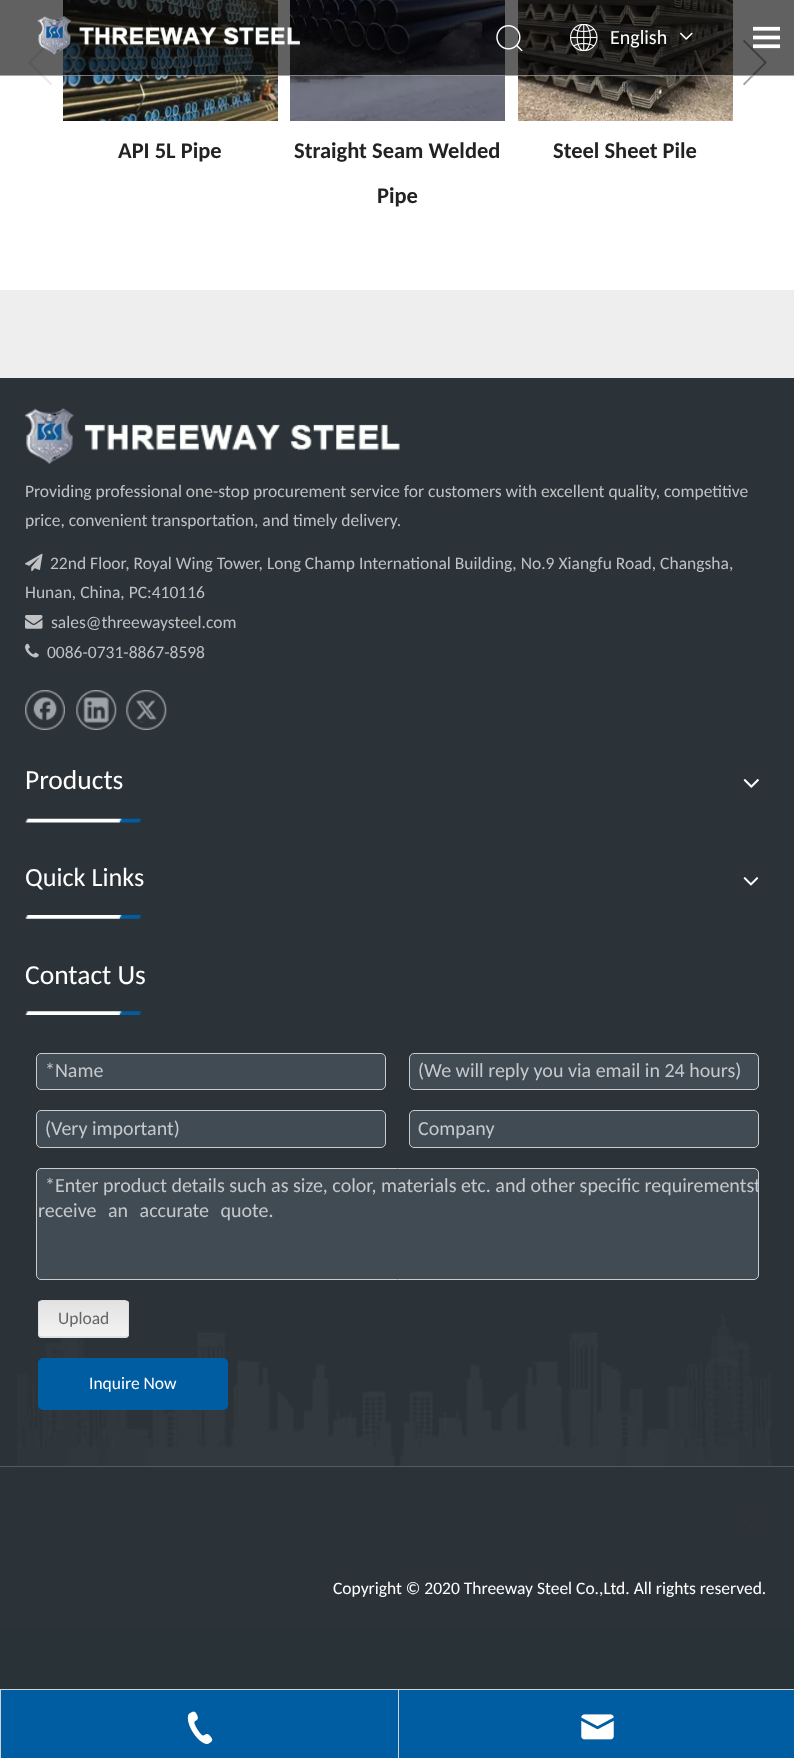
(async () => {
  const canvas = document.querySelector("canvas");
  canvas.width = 794;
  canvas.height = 1758;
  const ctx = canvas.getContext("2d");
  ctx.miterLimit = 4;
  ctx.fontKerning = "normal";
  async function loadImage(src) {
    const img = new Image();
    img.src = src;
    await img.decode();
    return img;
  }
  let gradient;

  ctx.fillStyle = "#eeeeee";
  ctx.fillRect(0, 0, 794, 1758);
  ctx.fillStyle = "#ffffff";
  ctx.fillRect(0, 0, 794, 290);
  ctx.drawImage(await loadImage("img/6.png"), 28, 46, 24, 39);
  ctx.drawImage(await loadImage("img/7.png"), 742, 40, 25, 46);
  ctx.drawImage(await loadImage("img/8.png"), 63, 0, 215, 121);
  ctx.drawImage(await loadImage("img/9.png"), 290, 0, 215, 121);
  ctx.drawImage(await loadImage("img/10.png"), 518, 0, 215, 121);
  ctx.fillStyle = "rgba(0, 0, 0, 0.62)";
  ctx.fillRect(0, 0, 794, 76);
  ctx.fillStyle = "rgba(255, 255, 255, 0.45)";
  ctx.fillRect(0, 75, 794, 1);
  ctx.drawImage(await loadImage("img/1.png"), 37, 16, 263, 39);
  ctx.drawImage(await loadImage("img/2.png"), 496, 25, 27, 26);
  ctx.drawImage(await loadImage("img/3.png"), 570, 24, 28, 27);
  ctx.drawImage(await loadImage("img/4.png"), 680, 32, 13, 8);
  ctx.drawImage(await loadImage("img/5.png"), 753, 26, 27, 23);
  ctx.fillStyle = "#2b3238";
  ctx.fillRect(0, 378, 794, 1088);
  ctx.drawImage(await loadImage("img/11.png"), 17, 1314, 754, 152);
  ctx.drawImage(await loadImage("img/12.png"), 25, 408, 375, 56);
  ctx.drawImage(await loadImage("img/13.png"), 25, 553, 18, 19);
  ctx.drawImage(await loadImage("img/14.png"), 25, 615, 18, 14);
  ctx.drawImage(await loadImage("img/15.png"), 25, 643, 14, 15);
  ctx.drawImage(await loadImage("img/16.png"), 25, 690, 40, 40);
  ctx.drawImage(await loadImage("img/17.png"), 76, 690, 41, 40);
  ctx.drawImage(await loadImage("img/18.png"), 126, 690, 41, 40);
  ctx.drawImage(await loadImage("img/19.png"), 25, 818, 117, 5);
  ctx.drawImage(await loadImage("img/20.png"), 743, 779, 16, 9);
  ctx.drawImage(await loadImage("img/21.png"), 25, 915, 117, 4);
  ctx.drawImage(await loadImage("img/22.png"), 743, 877, 16, 9);
  ctx.drawImage(await loadImage("img/23.png"), 25, 1011, 117, 4);
  ctx.fillStyle = "#414b54";
  ctx.beginPath();
  ctx.roundRect(36.5, 1053.5, 349, 36, 4.5);
  ctx.fill();
  ctx.strokeStyle = "#cccccc";
  ctx.stroke();
  ctx.beginPath();
  ctx.roundRect(409.5, 1053.5, 349, 36, 4.5);
  ctx.fill();
  ctx.stroke();
  ctx.beginPath();
  ctx.roundRect(36.5, 1110.5, 349, 37, 4.5);
  ctx.fill();
  ctx.stroke();
  ctx.beginPath();
  ctx.roundRect(409.5, 1110.5, 349, 37, 4.5);
  ctx.fill();
  ctx.stroke();
  ctx.beginPath();
  ctx.roundRect(36.5, 1168.5, 722, 111, 4.5);
  ctx.fill();
  ctx.stroke();
  ctx.save();
  ctx.beginPath();
  ctx.roundRect(38, 1300, 91, 38, 4);
  ctx.clip();
  gradient = ctx.createLinearGradient(83, 1301, 83, 1336);
  gradient.addColorStop(0, "#e2e2e2");
  gradient.addColorStop(1, "#f3f3f3");
  ctx.fillStyle = gradient;
  ctx.fillRect(38, 1301, 91, 35);
  gradient = ctx.createLinearGradient(83, 1336, 83, 1371);
  gradient.addColorStop(0, "#e2e2e2");
  gradient.addColorStop(1, "#f3f3f3");
  ctx.fillStyle = gradient;
  ctx.fillRect(38, 1336, 91, 2);
  ctx.restore();
  ctx.beginPath();
  ctx.roundRect(38.5, 1300.5, 90, 37, 3.5);
  ctx.strokeStyle = "#dddddd";
  ctx.stroke();
  ctx.fillStyle = "#005da2";
  ctx.beginPath();
  ctx.roundRect(38, 1358, 190, 52, 5);
  ctx.fill();
  ctx.fillStyle = "#2b3238";
  ctx.fillRect(0, 1467, 794, 162);
  ctx.fillStyle = "#555b60";
  ctx.fillRect(0, 1466, 794, 1);
  ctx.drawImage(await loadImage("img/24.png"), 743, 1518, 16, 9);
  for (const [x, y, w, h, color] of [
    [0, 1629, 794, 60, "#293237"],
    [0, 1689, 794, 1, "#d3d3d3"],
    [0, 1690, 1, 68, "#d3d3d3"],
    [1, 1690, 397, 68, "#005da2"],
  ]) {
    ctx.fillStyle = color;
    ctx.fillRect(x, y, w, h);
  }
  ctx.drawImage(await loadImage("img/25.png"), 187, 1711, 26, 33);
  ctx.fillStyle = "#d3d3d3";
  ctx.fillRect(398, 1690, 1, 68);
  ctx.fillStyle = "#005da2";
  ctx.fillRect(399, 1690, 395, 68);
  ctx.drawImage(await loadImage("img/26.png"), 581, 1714, 33, 26);
  ctx.font = "20px Carlito";
  ctx.fillStyle = "#ffffff";
  ctx.fillText("English", 610, 44);
  ctx.font = "bold 22.5px Carlito";
  ctx.fillStyle = "#222222";
  for (const [text, x, y] of [
    ["API 5L Pipe", 118, 158],
    ["Straight Seam Welded", 294, 158],
    ["Pipe", 377, 203],
    ["Steel Sheet Pile", 553, 158],
  ]) {
    ctx.fillText(text, x, y);
  }
  ctx.font = "17.5px Carlito";
  ctx.fillStyle = "#bfc2c3";
  for (const [text, x, y] of [
    ["Providing professional one-stop procurement service for customers with excellent quality, competitive", 25, 497],
    ["price, convenient transportation, and timely delivery.", 25, 526],
    ["22nd Floor, Royal Wing Tower, Long Champ International Building, No.9 Xiangfu Road, Changsha,", 50, 569],
    ["Hunan, China, PC:410116", 25, 598],
    ["sales@threewaysteel.com", 51, 628],
    ["0086-0731-8867-8598", 47, 658],
  ]) {
    ctx.fillText(text, x, y);
  }
  ctx.font = "27.5px Carlito";
  ctx.fillStyle = "#ffffff";
  ctx.fillText("Products", 25, 789);
  ctx.font = "26.25px Carlito";
  ctx.fillText("Quick Links", 25, 886);
  ctx.font = "27.5px Carlito";
  ctx.fillText("Contact Us", 25, 984);
  ctx.font = "20px Carlito";
  ctx.fillStyle = "#c6c9cc";
  for (const [text, x, y] of [
    ["*Name", 45, 1077],
    ["(We will reply you via email in 24 hours)", 418, 1077],
    ["(Very important)", 45, 1135],
    ["Company", 418, 1135],
    ["*Enter product details such as size, color, materials etc. and other specific requirements", 45, 1192],
  ]) {
    ctx.fillText(text, x, y);
  }
  ctx.save();
  ctx.beginPath();
  ctx.roundRect(38, 1169, 720, 110, 4);
  ctx.clip();
  ctx.fillText("t", 754, 1192);
  ctx.restore();
  ctx.wordSpacing = "7px";
  ctx.fillText("receive an accurate quote.", 38, 1217);
  ctx.wordSpacing = "0px";
  ctx.font = "17.5px Carlito";
  ctx.fillStyle = "#666666";
  ctx.fillText("Upload", 58, 1324);
  ctx.fillStyle = "#ffffff";
  ctx.fillText("Inquire Now", 89, 1389);
  ctx.fillText("Copyright © 2020 Threeway Steel Co.,Ltd. All rights reserved.", 333, 1594);
})();
